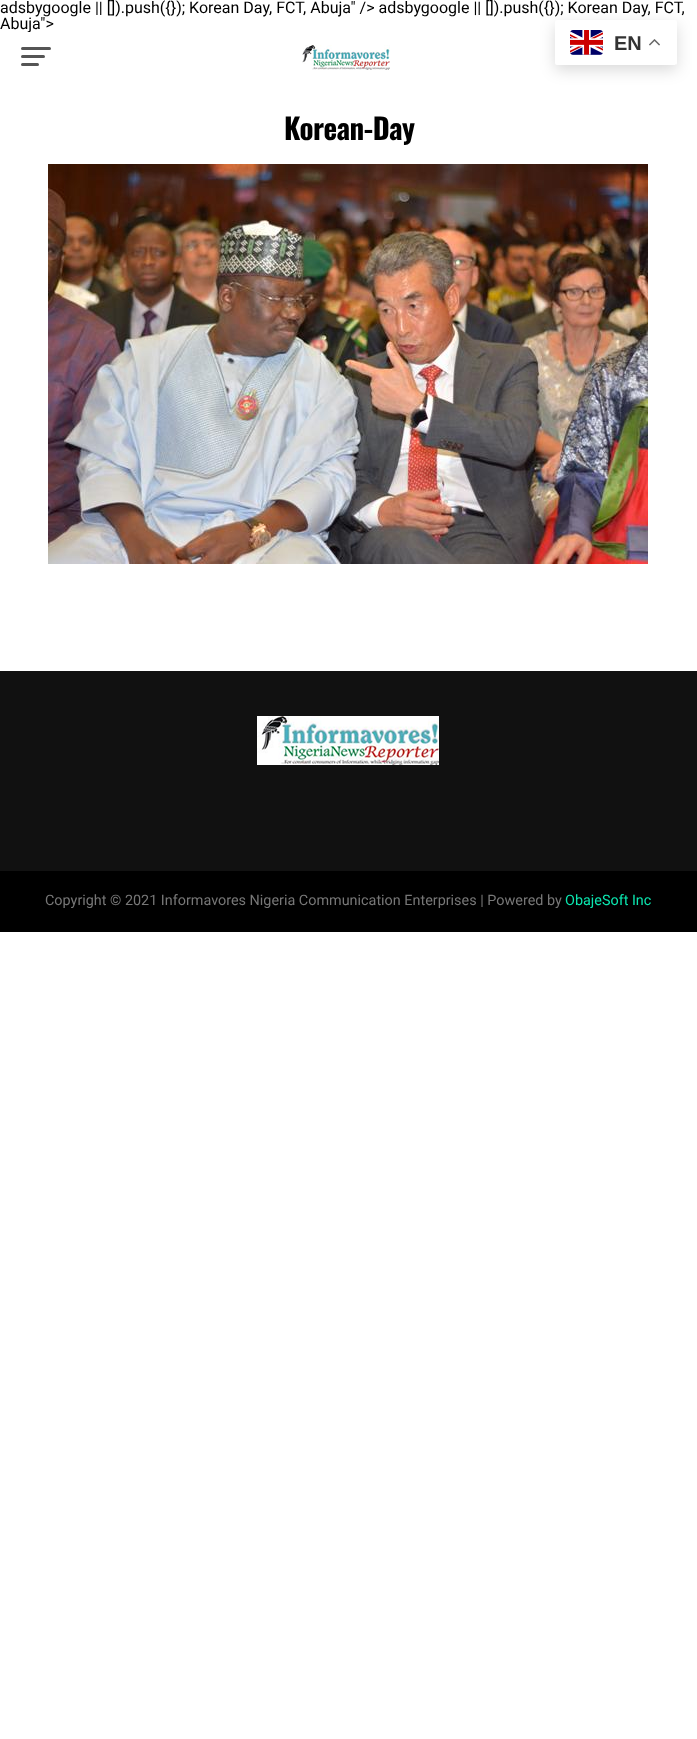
(async () => {
  const canvas = document.querySelector("canvas");
  canvas.width = 697;
  canvas.height = 1739;
  const ctx = canvas.getContext("2d");
  ctx.miterLimit = 4;
  ctx.fontKerning = "normal";
  async function loadImage(src) {
    const img = new Image();
    img.src = src;
    await img.decode();
    return img;
  }

  ctx.fillStyle = "#ffffff";
  ctx.fillRect(0, 0, 697, 1739);
  ctx.drawImage(await loadImage("img/4.png"), 675, 64, 1, 1);
  ctx.fillStyle = "rgba(0, 0, 0, 0.15)";
  ctx.filter = "blur(7.5px)";
  ctx.beginPath();
  ctx.roundRect(555, 25, 122, 45, 2);
  ctx.fill();
  ctx.filter = "none";
  ctx.fillStyle = "#ffffff";
  ctx.beginPath();
  ctx.roundRect(555, 20, 122, 45, 2);
  ctx.fill();
  ctx.drawImage(await loadImage("img/1.png"), 570, 30, 33, 25);
  ctx.drawImage(await loadImage("img/2.png"), 649, 39, 11, 7);
  ctx.fillStyle = "#555555";
  ctx.beginPath();
  ctx.roundRect(21, 47, 30, 3, 1.5);
  ctx.fill();
  ctx.beginPath();
  ctx.roundRect(21, 55, 24, 3, 1.5);
  ctx.fill();
  ctx.beginPath();
  ctx.roundRect(21, 63, 18, 3, 1.5);
  ctx.fill();
  ctx.drawImage(await loadImage("img/3.png"), 302, 45, 88, 25);
  ctx.drawImage(await loadImage("img/5.png"), 48, 164, 600, 400);
  ctx.fillStyle = "#111111";
  ctx.fillRect(0, 671, 697, 200);
  ctx.drawImage(await loadImage("img/6.png"), 257, 716, 182, 49);
  ctx.fillStyle = "#000000";
  ctx.fillRect(0, 871, 697, 61);
  ctx.font = "16px Roboto";
  ctx.fillText("adsbygoogle || []).push({}); Korean Day, FCT, Abuja\" /> adsbygoogle || []).push({}); Korean Day, FCT,", 0, 13);
  ctx.fillText("Abuja\">", 0, 29);
  ctx.font = "bold 20px Liberation Sans";
  ctx.fillStyle = "#333333";
  ctx.fillText("EN", 614, 50);
  ctx.fillStyle = "#ffffff";
  ctx.fillRect(27, 32, 3, 1);
  ctx.letterSpacing = "-0.5px";
  ctx.font = "bold 29px Oswald";
  ctx.fillStyle = "#000000";
  ctx.fillText("Korean-Day", 284, 140);
  ctx.letterSpacing = "0px";
  ctx.font = "14.4px Roboto";
  ctx.fillStyle = "#777777";
  ctx.fillText("Copyright © 2021 Informavores Nigeria Communication Enterprises | Powered by", 45, 905);
  ctx.fillStyle = "#0be6af";
  ctx.fillText("ObajeSoft Inc", 565, 905);
})();
